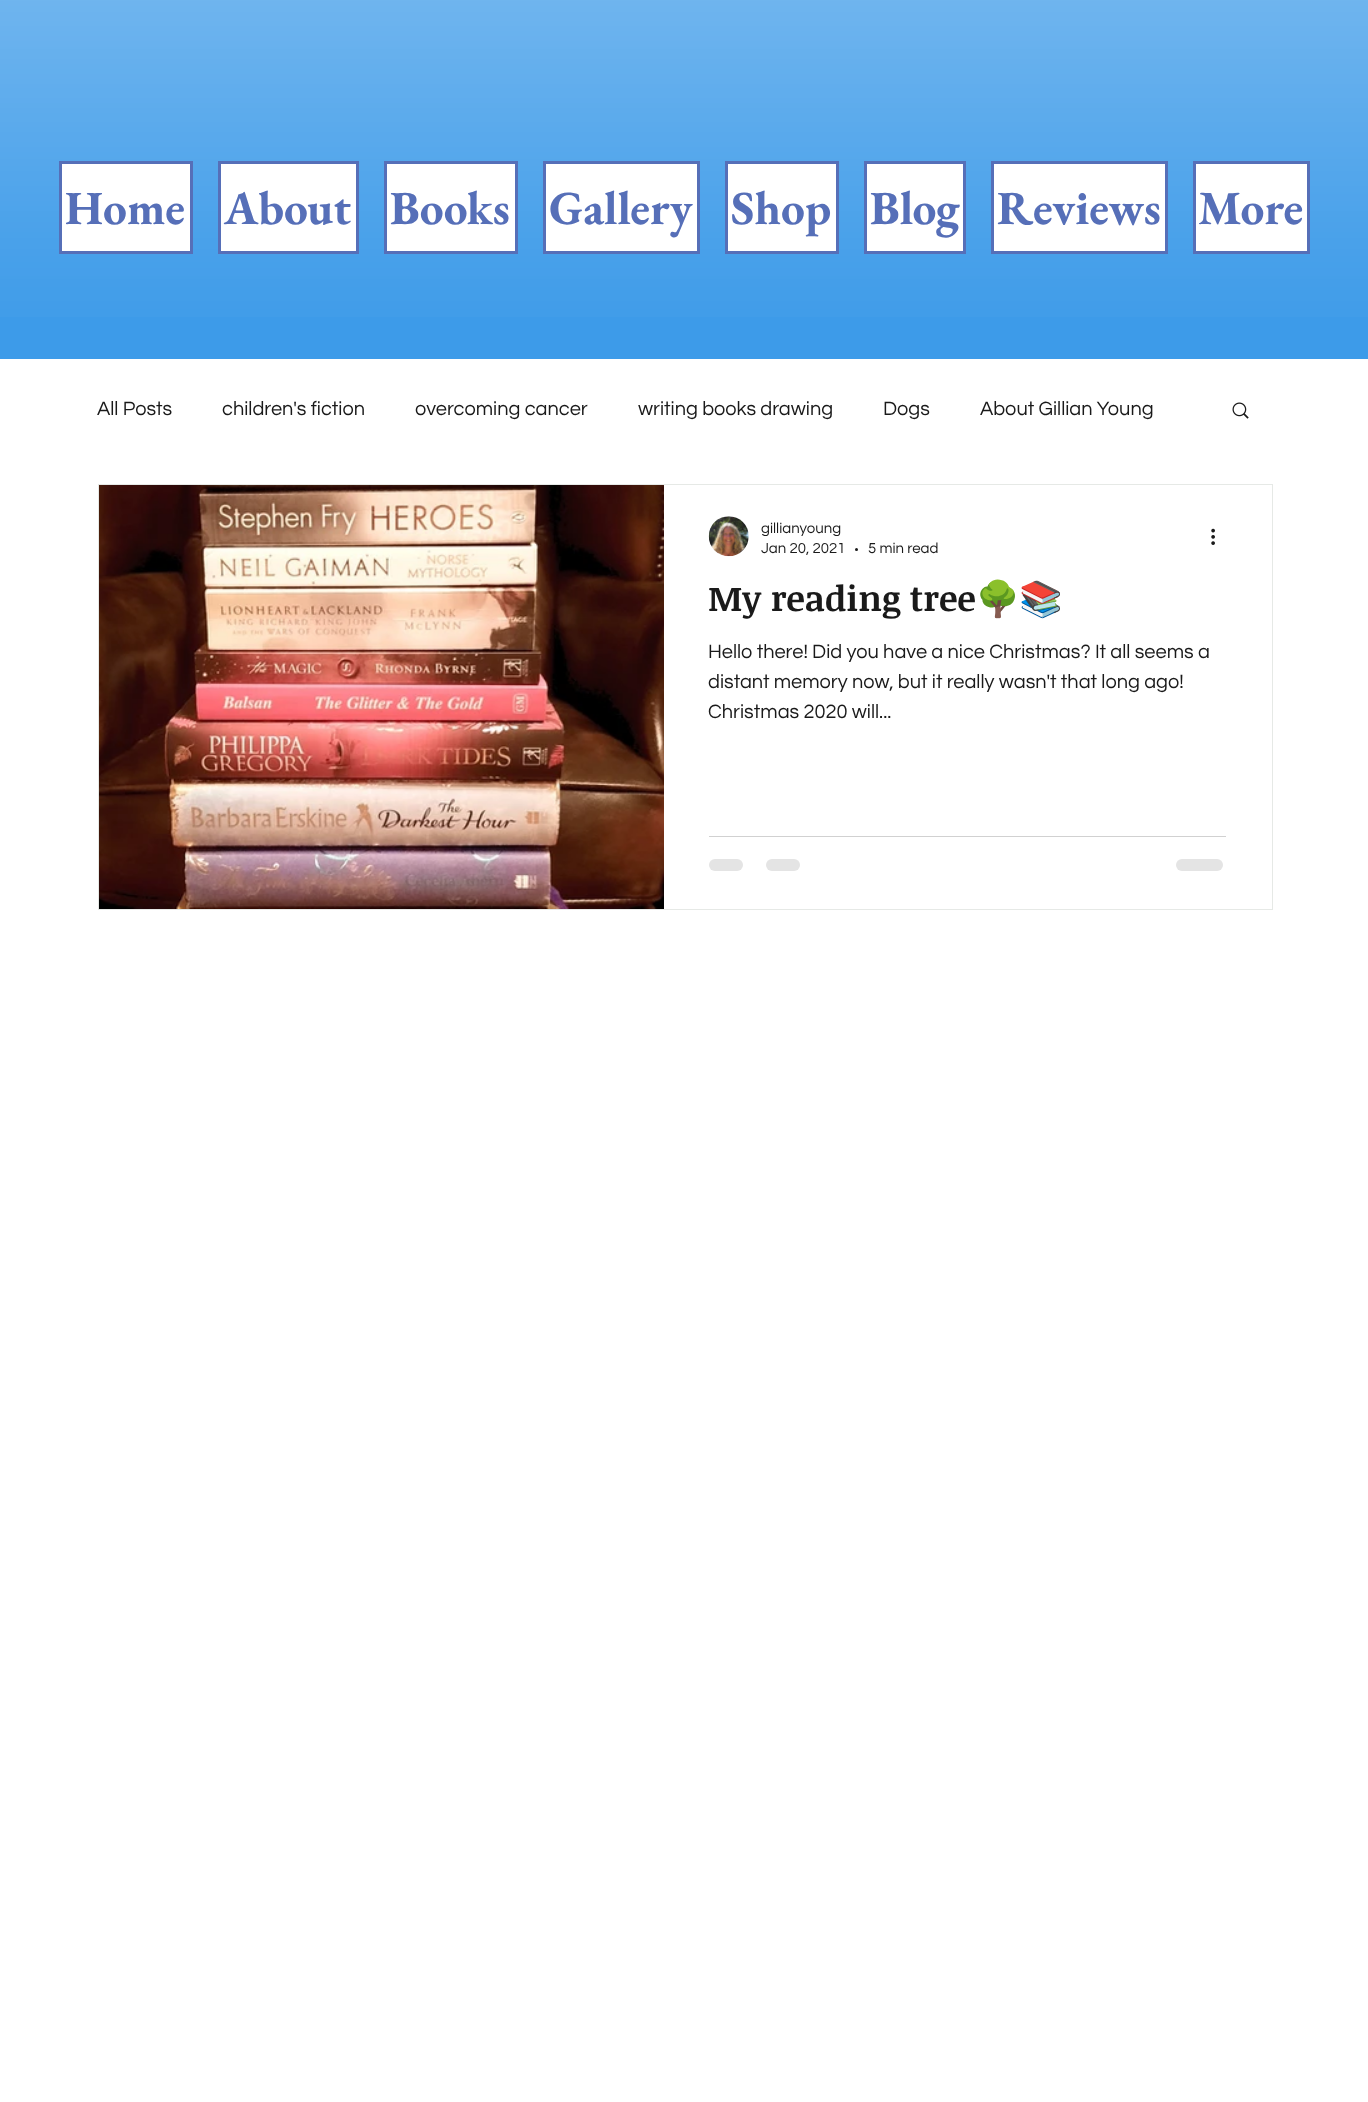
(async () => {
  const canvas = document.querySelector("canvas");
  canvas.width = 1368;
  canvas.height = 2102;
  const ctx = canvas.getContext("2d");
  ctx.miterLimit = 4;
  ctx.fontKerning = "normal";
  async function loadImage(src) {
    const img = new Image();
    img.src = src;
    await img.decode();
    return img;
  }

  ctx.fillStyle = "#ffffff";
  ctx.fillRect(0, 0, 1368, 2102);
  ctx.fillStyle = "#3d9be9";
  ctx.fillRect(0, 0, 1368, 359);
  ctx.drawImage(await loadImage("img/1.png"), 0, 0, 1368, 317);
  ctx.fillStyle = "#ffffff";
  ctx.beginPath();
  ctx.rect(60.5, 162.5, 131, 90);
  ctx.fill();
  ctx.strokeStyle = "#566fb8";
  ctx.lineWidth = 3;
  ctx.stroke();
  ctx.beginPath();
  ctx.rect(219.5, 162.5, 138, 90);
  ctx.fill();
  ctx.stroke();
  ctx.beginPath();
  ctx.rect(385.5, 162.5, 131, 90);
  ctx.fill();
  ctx.stroke();
  ctx.beginPath();
  ctx.rect(544.5, 162.5, 154, 90);
  ctx.fill();
  ctx.stroke();
  ctx.beginPath();
  ctx.rect(726.5, 162.5, 111, 90);
  ctx.fill();
  ctx.stroke();
  ctx.beginPath();
  ctx.rect(865.5, 162.5, 99, 90);
  ctx.fill();
  ctx.stroke();
  ctx.beginPath();
  ctx.rect(992.5, 162.5, 174, 90);
  ctx.fill();
  ctx.stroke();
  ctx.beginPath();
  ctx.rect(1194.5, 162.5, 114, 90);
  ctx.fill();
  ctx.stroke();
  ctx.drawImage(await loadImage("img/2.png"), 1232, 402, 17, 17);
  ctx.strokeStyle = "#e6e9e6";
  ctx.lineWidth = 1;
  ctx.strokeRect(98.5, 484.5, 1174, 425);
  ctx.drawImage(await loadImage("img/3.png"), 99, 485, 565, 424);
  ctx.drawImage(await loadImage("img/4.png"), 708, 516, 41, 41);
  ctx.fillStyle = "#1a1a1a";
  ctx.beginPath();
  ctx.arc(856.5, 549.5, 1.5, 0, Math.PI * 2);
  ctx.fill();
  ctx.drawImage(await loadImage("img/5.png"), 1211, 528, 4, 17);
  ctx.fillStyle = "#d1d1d1";
  ctx.fillRect(709, 836, 517, 1);
  ctx.fillStyle = "#e4e4e4";
  ctx.beginPath();
  ctx.roundRect(709, 859, 34, 12, 6);
  ctx.fill();
  ctx.beginPath();
  ctx.roundRect(766, 859, 34, 12, 6);
  ctx.fill();
  ctx.beginPath();
  ctx.roundRect(1176, 859, 47, 12, 6);
  ctx.fill();
  ctx.font = "bold 47.5px EB Garamond";
  ctx.fillStyle = "#566fb8";
  for (const [text, x, y] of [
    ["Home", 65, 224],
    ["About", 224, 224],
    ["Books", 390, 224],
    ["Gallery", 549, 224],
    ["Shop", 731, 224],
    ["Blog", 870, 224],
    ["Reviews", 997, 224],
    ["More", 1198, 224],
  ]) {
    ctx.fillText(text, x, y);
  }
  ctx.font = "20px Questrial";
  ctx.fillStyle = "#1a1a1a";
  for (const [text, x, y] of [
    ["All Posts", 97, 415],
    ["children's fiction", 222, 415],
    ["overcoming cancer", 415, 415],
    ["writing books drawing", 638, 415],
    ["Dogs", 883, 415],
    ["About Gillian Young", 980, 415],
  ]) {
    ctx.fillText(text, x, y);
  }
  ctx.font = "15px Questrial";
  for (const [text, x, y] of [
    ["gillianyoung", 761, 533],
    ["Jan 20, 2021", 761, 553],
    ["5 min read", 868, 553],
  ]) {
    ctx.fillText(text, x, y);
  }
  ctx.font = "bold 35px Noticia Text";
  ctx.fillText("My reading tree", 708, 611);
  ctx.font = "bold 35px Noto Color Emoji";
  ctx.fillText("🌳📚", 976, 611);
  ctx.font = "20px Questrial";
  for (const [text, x, y] of [
    ["Hello there! Did you have a nice Christmas? It all seems a", 708, 658],
    ["distant memory now, but it really wasn't that long ago!", 708, 688],
    ["Christmas 2020 will...", 708, 718],
  ]) {
    ctx.fillText(text, x, y);
  }
})();
